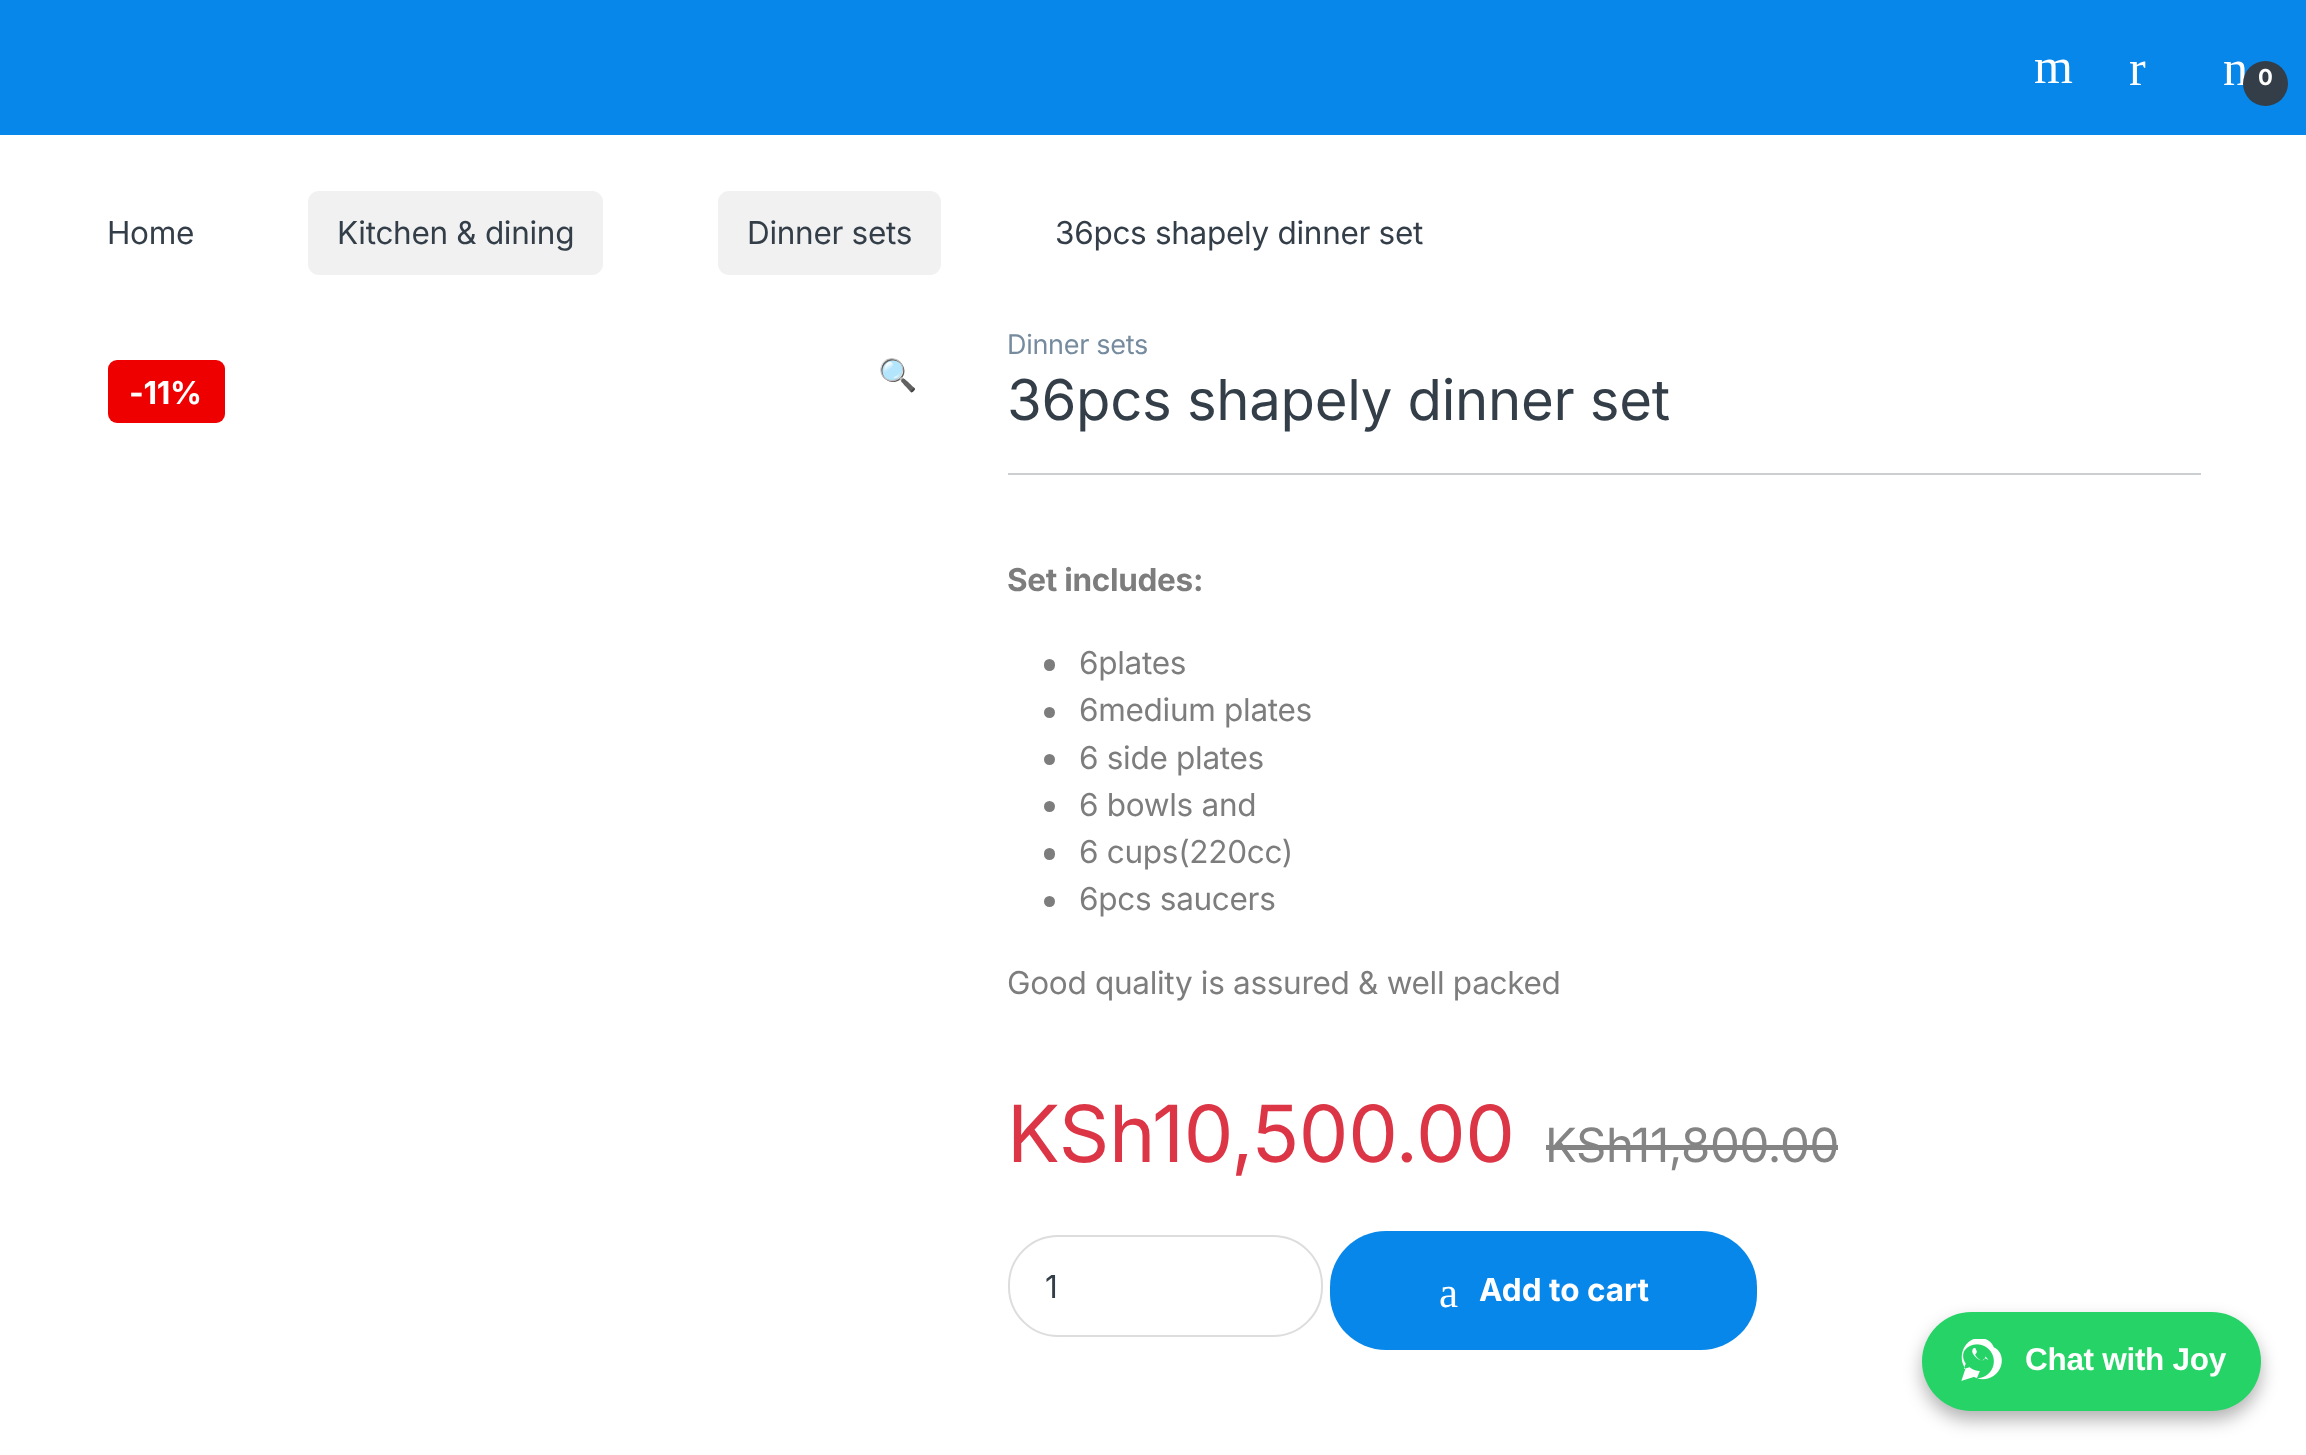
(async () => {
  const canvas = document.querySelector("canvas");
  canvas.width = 2306;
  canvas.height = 1455;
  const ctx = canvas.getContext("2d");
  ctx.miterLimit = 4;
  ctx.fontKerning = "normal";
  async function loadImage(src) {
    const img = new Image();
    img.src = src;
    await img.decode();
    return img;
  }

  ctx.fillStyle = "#ffffff";
  ctx.fillRect(0, 0, 2306, 1455);
  ctx.fillStyle = "#0787ea";
  ctx.fillRect(0, 0, 2306, 135);
  ctx.fillStyle = "#f1f1f1";
  ctx.beginPath();
  ctx.roundRect(308, 191, 295, 84, 11);
  ctx.fill();
  ctx.beginPath();
  ctx.roundRect(718, 191, 223, 84, 11);
  ctx.fill();
  ctx.fillStyle = "#ee0000";
  ctx.beginPath();
  ctx.roundRect(108, 360, 117, 63, 9);
  ctx.fill();
  ctx.fillStyle = "#cccfd1";
  ctx.fillRect(1008, 473, 1193, 2);
  ctx.fillStyle = "#7d7d7d";
  ctx.beginPath();
  ctx.roundRect(1044, 659, 11, 12, 5.5);
  ctx.fill();
  ctx.beginPath();
  ctx.arc(1049.5, 712.5, 5.5, 0, Math.PI * 2);
  ctx.fill();
  ctx.beginPath();
  ctx.arc(1049.5, 759.5, 5.5, 0, Math.PI * 2);
  ctx.fill();
  ctx.beginPath();
  ctx.arc(1049.5, 806.5, 5.5, 0, Math.PI * 2);
  ctx.fill();
  ctx.beginPath();
  ctx.roundRect(1044, 848, 11, 12, 5.5);
  ctx.fill();
  ctx.beginPath();
  ctx.arc(1049.5, 901.5, 5.5, 0, Math.PI * 2);
  ctx.fill();
  ctx.fillStyle = "#848484";
  ctx.fillRect(1546, 1145, 85, 5);
  ctx.fillRect(1631, 1145, 207, 5);
  ctx.beginPath();
  ctx.roundRect(1009, 1236, 313, 100, 49);
  ctx.strokeStyle = "#dddddd";
  ctx.lineWidth = 2;
  ctx.stroke();
  ctx.fillStyle = "#0787ea";
  ctx.beginPath();
  ctx.roundRect(1330, 1231, 427, 119, 56);
  ctx.fill();
  ctx.fillStyle = "rgba(0, 0, 0, 0.3)";
  ctx.filter = "blur(9px)";
  ctx.beginPath();
  ctx.roundRect(1922, 1321, 339, 99, 49.5);
  ctx.fill();
  ctx.filter = "none";
  ctx.fillStyle = "#25d366";
  ctx.beginPath();
  ctx.roundRect(1922, 1312, 339, 99, 49.5);
  ctx.fill();
  ctx.drawImage(await loadImage("img/1.png"), 1961, 1339, 41, 42);
  ctx.letterSpacing = "-0.3px";
  ctx.font = "50px Liberation Serif";
  ctx.fillStyle = "#ffffff";
  for (const [text, x, y] of [
    ["m", 2034, 83],
    ["r", 2129, 85],
    ["n", 2223, 85],
  ]) {
    ctx.fillText(text, x, y);
  }
  ctx.fillStyle = "#333e48";
  ctx.beginPath();
  ctx.arc(2265.5, 83.5, 22.5, 0, Math.PI * 2);
  ctx.fill();
  ctx.font = "bold 22px Inter";
  ctx.fillStyle = "#ffffff";
  ctx.fillText("0", 2258, 85);
  ctx.font = "31.5px Inter";
  ctx.fillStyle = "#333e48";
  for (const [text, x, y] of [
    ["Home", 107, 244],
    ["Kitchen & dining", 337, 244],
    ["Dinner sets", 747, 244],
    ["36pcs shapely dinner set", 1055, 244],
  ]) {
    ctx.fillText(text, x, y);
  }
  ctx.font = "bold 31.5px Inter";
  ctx.fillStyle = "#ffffff";
  ctx.fillText("-11%", 129, 404);
  ctx.font = "31.5px Noto Color Emoji";
  ctx.fillStyle = "#333e48";
  ctx.fillText("🔍", 878, 386);
  ctx.font = "27px Inter";
  ctx.fillStyle = "#768b9e";
  ctx.fillText("Dinner sets", 1007, 354);
  ctx.font = "56.25px Inter";
  ctx.fillStyle = "#333e48";
  ctx.fillText("36pcs shapely dinner set", 1007, 420);
  ctx.font = "bold 31.5px Inter";
  ctx.fillStyle = "#7d7d7d";
  ctx.fillText("Set includes:", 1007, 591);
  ctx.font = "31.5px Inter";
  for (const [text, x, y] of [
    ["6plates", 1079, 674],
    ["6medium plates", 1079, 721],
    ["6 side plates", 1079, 769],
    ["6 bowls and", 1079, 816],
    ["6 cups(220cc)", 1079, 863],
    ["6pcs saucers", 1079, 910],
    ["Good quality is assured & well packed", 1007, 994],
  ]) {
    ctx.fillText(text, x, y);
  }
  ctx.font = "78.75px Inter";
  ctx.fillStyle = "#dc3545";
  ctx.fillText("KSh", 1007, 1162);
  ctx.fillText("10,500.00", 1152, 1162);
  ctx.font = "47.25px Inter";
  ctx.fillStyle = "#848484";
  ctx.fillText("KSh", 1545, 1162);
  ctx.fillText("11,800.00", 1631, 1162);
  ctx.letterSpacing = "0px";
  ctx.font = "31.5px Inter";
  ctx.fillStyle = "#333e48";
  ctx.fillText("1", 1045, 1298);
  ctx.font = "43px Liberation Serif";
  ctx.fillStyle = "#ffffff";
  ctx.fillText("a", 1439, 1307);
  ctx.font = "bold 31.5px Inter";
  ctx.fillText("Add to cart", 1479, 1301);
  ctx.letterSpacing = "-0.3px";
  ctx.font = "bold 31.5px Liberation Sans";
  ctx.fillText("Chat with Joy", 2025, 1370);
})();
